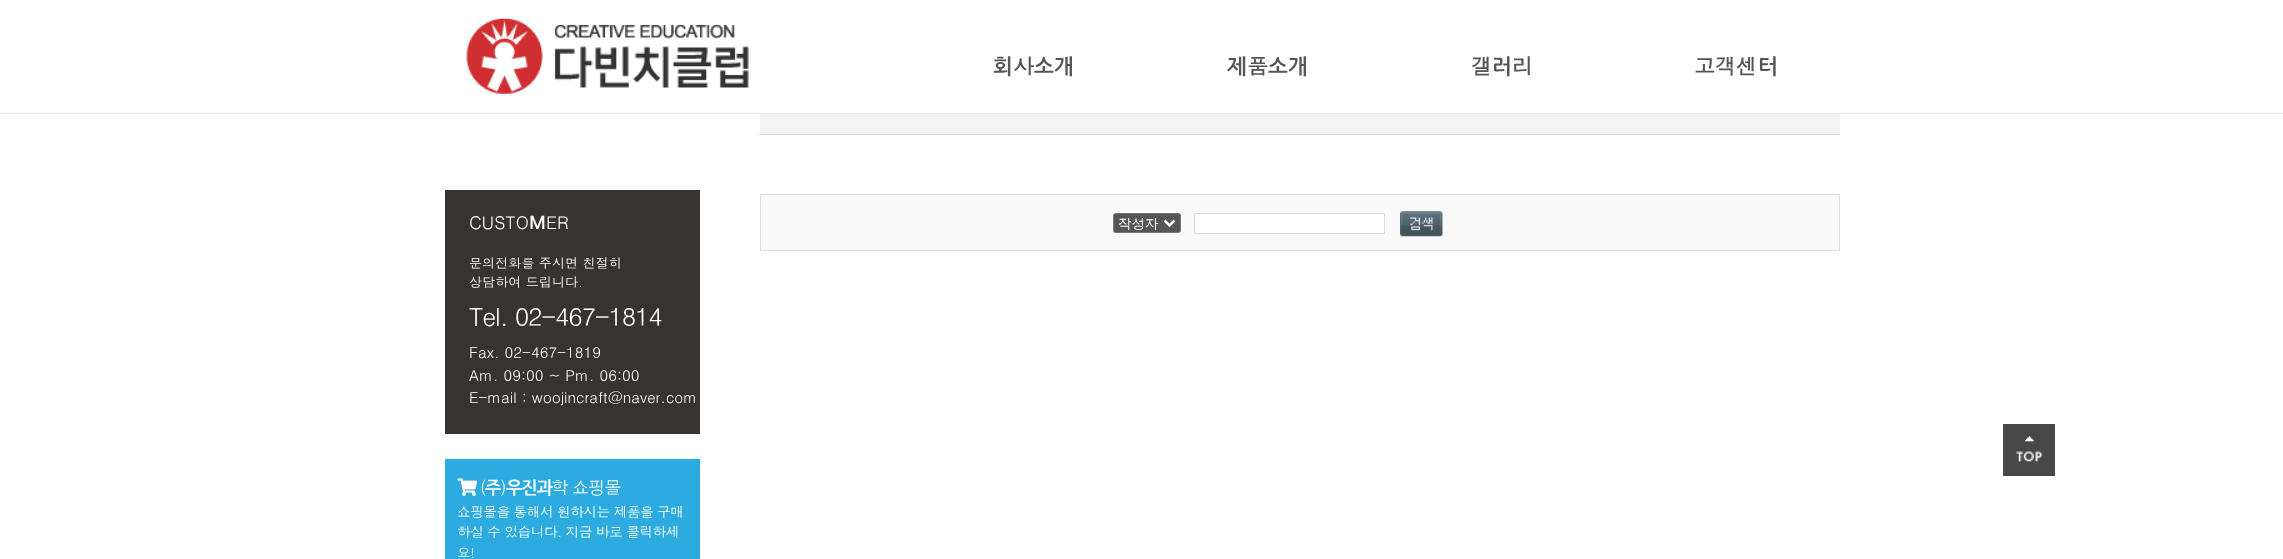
(async () => {
  const canvas = document.querySelector("canvas");
  canvas.width = 2283;
  canvas.height = 559;
  const ctx = canvas.getContext("2d");
  ctx.miterLimit = 4;
  ctx.fontKerning = "normal";
  async function loadImage(src) {
    const img = new Image();
    img.src = src;
    await img.decode();
    return img;
  }
  let path;

  ctx.fillStyle = "#ffffff";
  ctx.fillRect(0, 0, 2283, 559);
  ctx.fillStyle = "#e6e6e6";
  ctx.fillRect(0, 113, 2283, 1);
  ctx.drawImage(await loadImage("img/1.png"), 466, 18, 283, 76);
  ctx.fillStyle = "#363331";
  ctx.fillRect(445, 190, 255, 244);
  ctx.fillStyle = "#2cabe0";
  ctx.fillRect(445, 459, 255, 100);
  ctx.drawImage(await loadImage("img/2.png"), 457, 478, 21, 18);
  ctx.fillStyle = "#f3f3f3";
  ctx.fillRect(760, 114, 1080, 20);
  ctx.fillStyle = "#dadada";
  ctx.fillRect(759, 134, 1081, 1);
  ctx.fillStyle = "#f9f9f9";
  ctx.beginPath();
  ctx.rect(760.5, 194.5, 1079, 56);
  ctx.fill();
  ctx.strokeStyle = "#dddddd";
  ctx.stroke();
  ctx.fillStyle = "#555555";
  ctx.beginPath();
  ctx.roundRect(1113.5, 213.5, 67, 19, 2);
  ctx.fill();
  ctx.strokeStyle = "#767676";
  ctx.stroke();
  path = new Path2D("M1164.5 220.5L1169.5 225.5L1174.5 220.5");
  ctx.strokeStyle = "#ffffff";
  ctx.lineWidth = 2.5;
  ctx.stroke(path);
  ctx.fillStyle = "#ffffff";
  ctx.beginPath();
  ctx.rect(1194.5, 213.5, 190, 20);
  ctx.fill();
  ctx.strokeStyle = "#dddddd";
  ctx.lineWidth = 1;
  ctx.stroke();
  ctx.drawImage(await loadImage("img/3.png"), 1400, 211, 43, 26);
  ctx.fillStyle = "#484848";
  ctx.fillRect(2003, 424, 52, 52);
  ctx.drawImage(await loadImage("img/4.png"), 2016, 436, 27, 26);
  ctx.font = "bold 21px NanumGothic";
  ctx.fillStyle = "#555555";
  ctx.fillText("회", 993, 74);
  ctx.font = "bold 21px Dotum";
  ctx.fillText("사", 1013, 74);
  ctx.font = "bold 21px NanumGothic";
  ctx.fillText("소개", 1034, 74);
  ctx.fillText("제", 1227, 74);
  ctx.font = "bold 21px Dotum";
  ctx.fillText("품", 1247, 74);
  ctx.font = "bold 21px NanumGothic";
  ctx.fillText("소개", 1268, 74);
  ctx.font = "bold 21px Dotum";
  ctx.fillText("갤", 1471, 74);
  ctx.font = "bold 21px NanumGothic";
  ctx.fillText("러", 1492, 74);
  ctx.font = "bold 21px Dotum";
  ctx.fillText("리", 1512, 74);
  ctx.fillText("고객센", 1694, 74);
  ctx.font = "bold 21px NanumGothic";
  ctx.fillText("터", 1758, 74);
  ctx.font = "17.5px Dotum";
  ctx.fillStyle = "#ffffff";
  ctx.fillText("CUSTO", 469, 229);
  ctx.font = "bold 17.5px NanumGothic";
  ctx.fillText("M", 529, 229);
  ctx.font = "17.5px Dotum";
  ctx.fillText("ER", 546, 229);
  ctx.font = "13.1px Dotum";
  ctx.fillText("문의전화를 주시면 친절히", 469, 268);
  ctx.fillText("상담하여 드립니다.", 469, 287);
  ctx.letterSpacing = "-1.25px";
  ctx.font = "25px Dotum";
  ctx.fillText("Tel. 02-467-1814", 469, 326);
  ctx.letterSpacing = "0px";
  ctx.font = "15px Dotum";
  for (const [text, x, y] of [
    ["Fax. 02-467-1819", 469, 358],
    ["Am. 09:00 ~ Pm. 06:00", 469, 381],
    ["E-mail : woojincraft@naver.com", 469, 403],
  ]) {
    ctx.fillText(text, x, y);
  }
  ctx.letterSpacing = "-1.25px";
  ctx.font = "17.5px Dotum";
  ctx.fillText("(", 480, 494);
  ctx.font = "bold 17.5px NanumGothic";
  ctx.fillText("주", 485, 494);
  ctx.font = "17.5px Dotum";
  ctx.fillText(")", 500, 494);
  ctx.font = "bold 17.5px NanumGothic";
  ctx.fillText("우진과", 506, 494);
  ctx.font = "17.5px Dotum";
  ctx.fillText("학 쇼핑몰", 551, 494);
  ctx.letterSpacing = "-0.6px";
  ctx.font = "13.75px Dotum";
  for (const [text, x, y] of [
    ["쇼핑몰을 통해서 원하시는 제품을 구매", 457, 517],
    ["하실 수 있습니다. 지금 바로 클릭하세", 457, 537],
    ["요!", 457, 558],
  ]) {
    ctx.fillText(text, x, y);
  }
  ctx.letterSpacing = "0px";
  ctx.font = "500 13.5px WenQuanYi Zen Hei";
  ctx.fillText("작성자", 1118, 228);
})();
